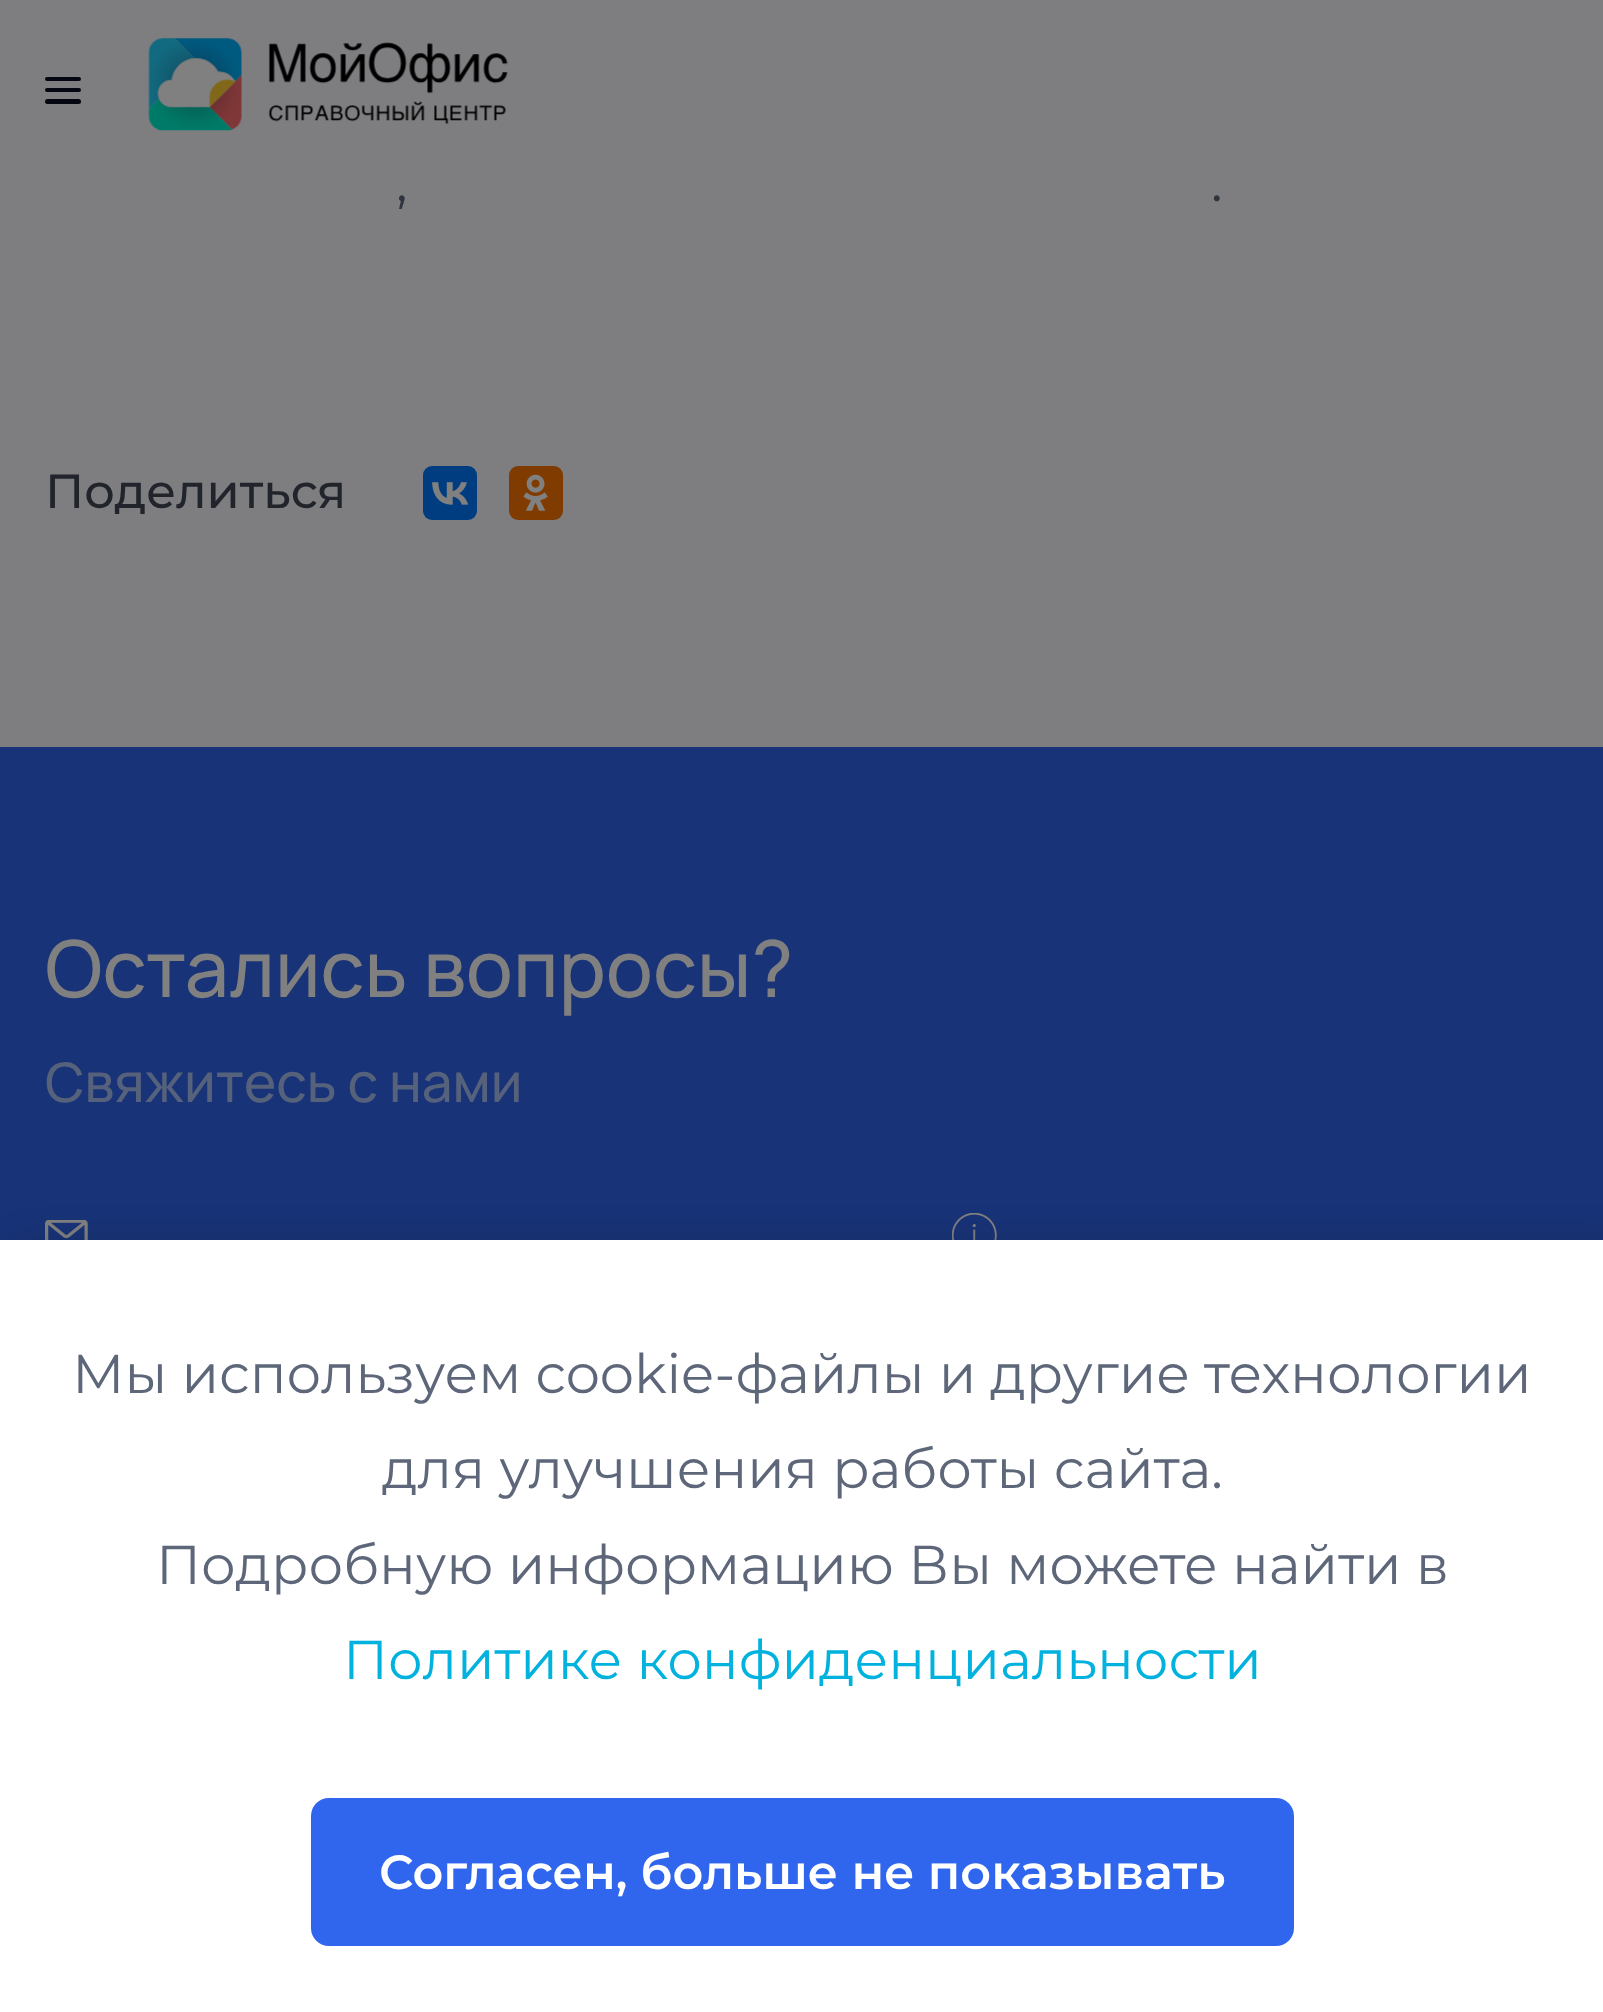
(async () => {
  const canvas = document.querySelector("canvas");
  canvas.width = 1603;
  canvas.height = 2012;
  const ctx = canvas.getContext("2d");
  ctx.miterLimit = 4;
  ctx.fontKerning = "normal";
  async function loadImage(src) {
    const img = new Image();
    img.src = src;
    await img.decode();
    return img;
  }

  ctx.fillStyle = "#7e7e80";
  ctx.fillRect(0, 0, 1603, 2012);
  ctx.fillStyle = "#040711";
  ctx.beginPath();
  ctx.roundRect(45, 77, 36, 4, 2);
  ctx.fill();
  ctx.beginPath();
  ctx.roundRect(45, 88, 36, 4, 2);
  ctx.fill();
  ctx.beginPath();
  ctx.roundRect(45, 99, 36, 5, 2.5);
  ctx.fill();
  ctx.drawImage(await loadImage("img/1.png"), 148, 38, 360, 93);
  ctx.fillStyle = "#003c80";
  ctx.beginPath();
  ctx.roundRect(423, 466, 54, 54, 9);
  ctx.fill();
  ctx.drawImage(await loadImage("img/2.png"), 432, 482, 37, 23);
  ctx.fillStyle = "#803c00";
  ctx.beginPath();
  ctx.roundRect(509, 466, 54, 54, 9);
  ctx.fill();
  ctx.drawImage(await loadImage("img/3.png"), 523, 474, 25, 37);
  ctx.fillStyle = "#183377";
  ctx.fillRect(0, 747, 1603, 493);
  ctx.drawImage(await loadImage("img/4.png"), 45, 1220, 43, 20);
  ctx.drawImage(await loadImage("img/5.png"), 952, 1213, 45, 27);
  ctx.fillStyle = "rgba(0, 0, 0, 0.25)";
  ctx.filter = "blur(22.5px)";
  ctx.beginPath();
  ctx.rect(23, 1253, 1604, 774);
  ctx.fill();
  ctx.filter = "none";
  ctx.fillStyle = "#ffffff";
  ctx.fillRect(0, 1240, 1603, 772);
  ctx.fillStyle = "#3065ed";
  ctx.beginPath();
  ctx.roundRect(311, 1798, 983, 148, 18);
  ctx.fill();
  ctx.font = "54.55px Montserrat";
  ctx.fillStyle = "#2f343d";
  ctx.fillText(",", 396, 201);
  ctx.fillText(".", 1211, 201);
  ctx.font = "500 47.75px Montserrat";
  ctx.fillStyle = "#21242b";
  ctx.fillText("Поделиться", 45, 508);
  ctx.font = "500 78.5px Manrope";
  ctx.fillStyle = "#808080";
  ctx.fillText("Остались вопросы?", 45, 997);
  ctx.font = "500 54.55px Manrope";
  ctx.fillStyle = "#56617c";
  ctx.fillText("Свяжитесь с нами", 45, 1102);
  ctx.wordSpacing = "-0.25px";
  ctx.font = "54.55px Montserrat";
  ctx.fillStyle = "#5e677a";
  ctx.fillText("Мы используем cookie-файлы и другие технологии", 72, 1393);
  ctx.wordSpacing = "0px";
  ctx.fillText("для улучшения работы сайта.", 382, 1488);
  ctx.fillText("Подробную информацию Вы можете найти в", 156, 1584);
  ctx.fillStyle = "#01b2de";
  ctx.fillText("Политике конфиденциальности", 343, 1679);
  ctx.font = "600 47.75px Montserrat";
  ctx.fillStyle = "#ffffff";
  ctx.fillText("Согласен, больше не показывать", 379, 1889);
})();
